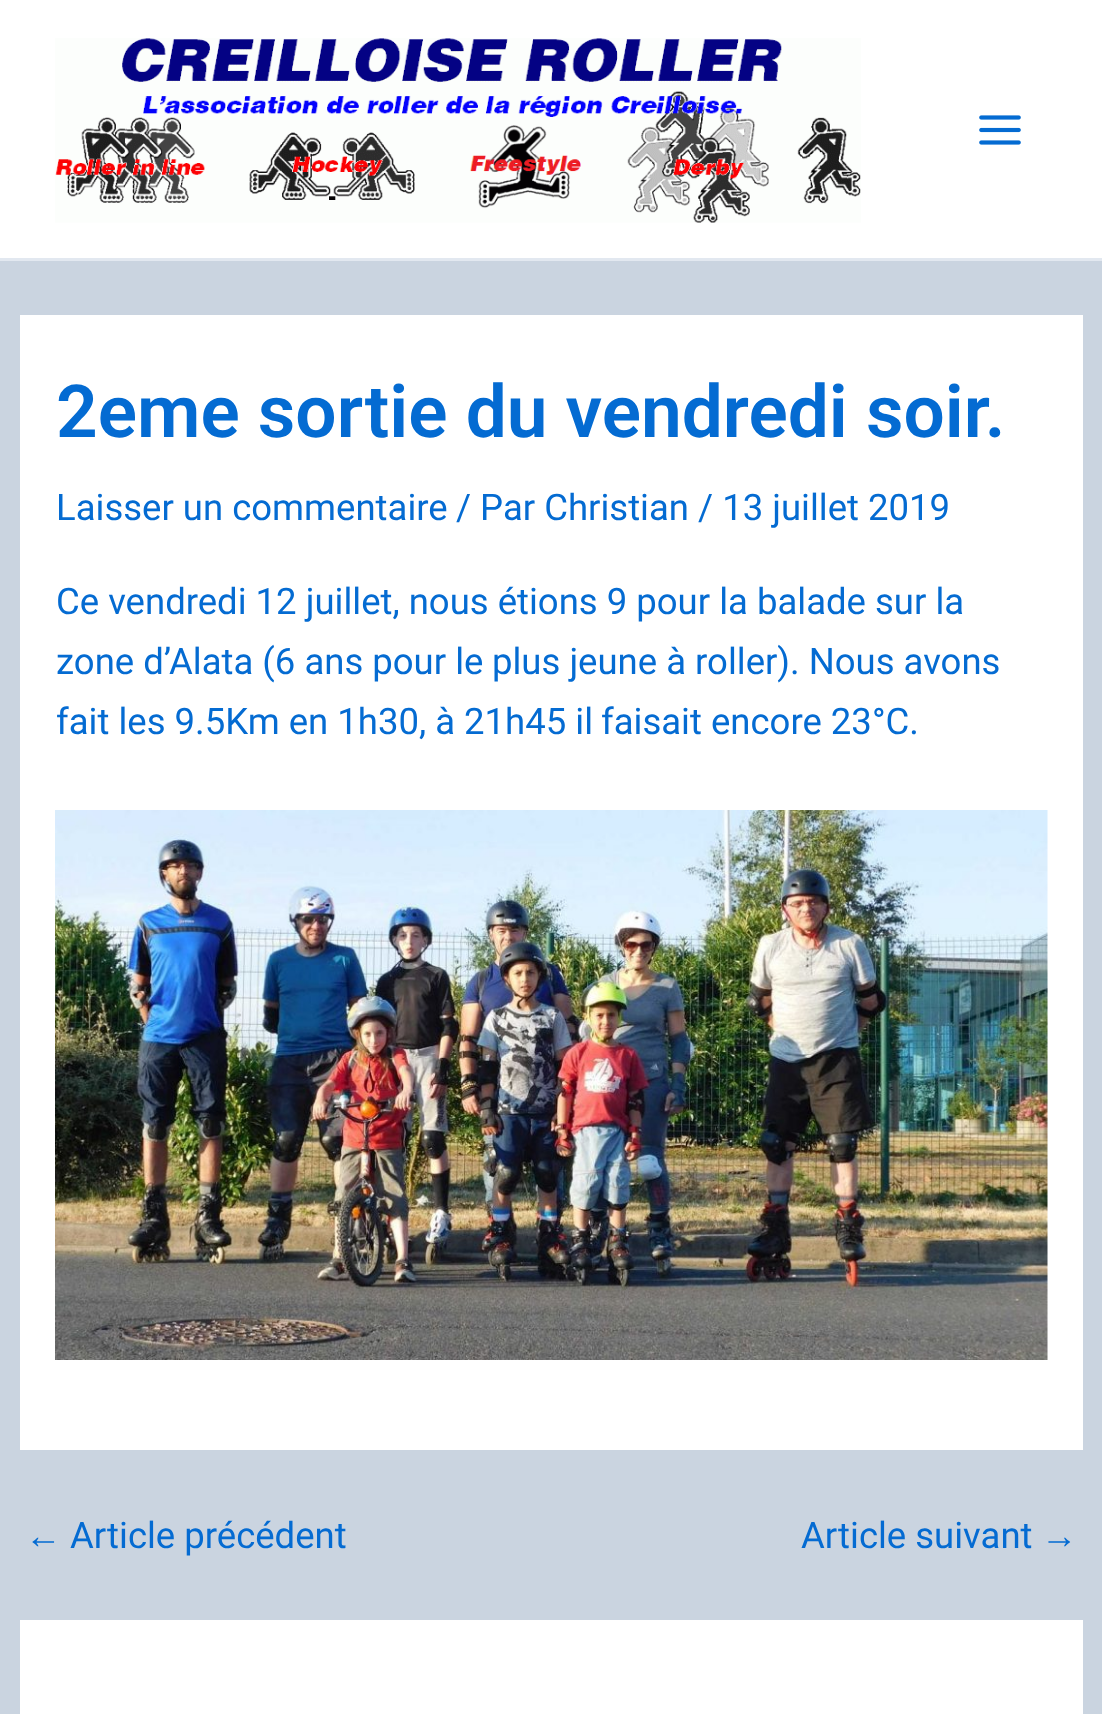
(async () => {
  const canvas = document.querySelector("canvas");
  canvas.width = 1102;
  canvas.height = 1714;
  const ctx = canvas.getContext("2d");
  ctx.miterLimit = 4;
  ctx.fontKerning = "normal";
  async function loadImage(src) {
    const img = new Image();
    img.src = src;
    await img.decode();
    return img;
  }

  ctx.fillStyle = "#cad4e0";
  ctx.fillRect(0, 0, 1102, 1714);
  ctx.fillStyle = "#ffffff";
  ctx.fillRect(0, 0, 1102, 258);
  ctx.fillStyle = "#e2e8f0";
  ctx.fillRect(0, 258, 1102, 3);
  ctx.drawImage(await loadImage("img/1.png"), 55, 38, 806, 185);
  ctx.drawImage(await loadImage("img/2.png"), 979, 115, 42, 30);
  ctx.fillStyle = "#ffffff";
  ctx.fillRect(20, 315, 1063, 1135);
  ctx.drawImage(await loadImage("img/3.png"), 55, 810, 993, 550);
  ctx.fillRect(20, 1620, 1063, 94);
  ctx.font = "600 73px Roboto";
  ctx.fillStyle = "#046bd2";
  ctx.fillText("2eme sortie du vendredi soir.", 56, 437);
  ctx.font = "36.5px Roboto";
  for (const [text, x, y] of [
    ["Laisser un commentaire", 56, 520],
    ["/ Par Christian / 13 juillet 2019", 456, 520],
    ["Ce vendredi 12 juillet, nous étions 9 pour la balade sur la", 56, 614],
    ["zone d’Alata (6 ans pour le", 56, 674],
    ["plus jeune à roller). Nous avons", 492, 674],
    ["fait les 9.5Km en 1h30, à 21h45 il", 56, 734],
    ["faisait encore 23°C.", 601, 734],
  ]) {
    ctx.fillText(text, x, y);
  }
  ctx.font = "36.5px Liberation Sans";
  ctx.fillText("←", 25, 1548);
  ctx.font = "36.5px Roboto";
  ctx.fillText("Article précédent", 70, 1548);
  ctx.fillText("Article suivant", 801, 1548);
  ctx.font = "36.5px Liberation Sans";
  ctx.fillText("→", 1041, 1548);
})();
